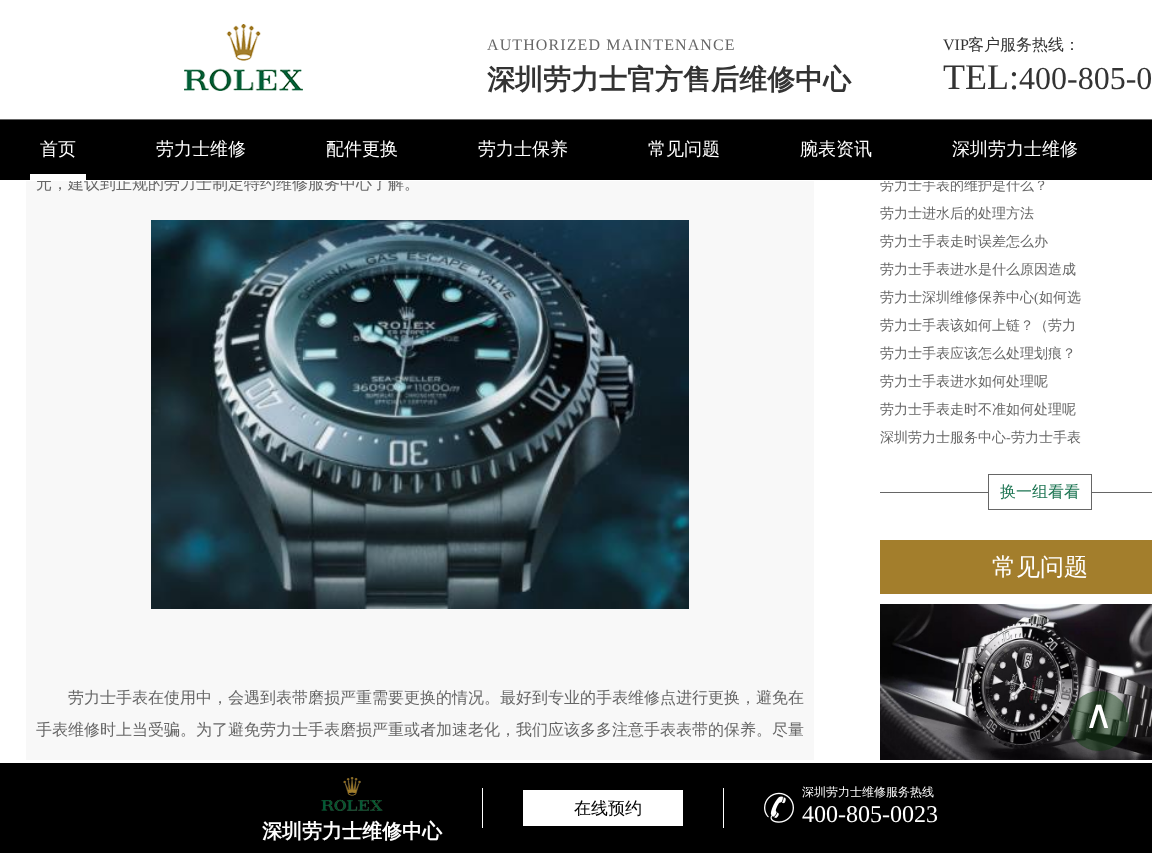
(async () => {
  const canvas = document.querySelector("canvas");
  canvas.width = 1152;
  canvas.height = 853;
  const ctx = canvas.getContext("2d");
  ctx.miterLimit = 4;
  ctx.fontKerning = "normal";
  async function loadImage(src) {
    const img = new Image();
    img.src = src;
    await img.decode();
    return img;
  }

  ctx.fillStyle = "#ffffff";
  ctx.fillRect(0, 0, 1152, 853);
  ctx.drawImage(await loadImage("img/1.png"), 184, 24, 119, 67);
  ctx.fillStyle = "#666666";
  ctx.fillRect(0, 119, 1152, 1);
  ctx.fillStyle = "#f8f8f8";
  ctx.fillRect(26, 181, 788, 579);
  ctx.drawImage(await loadImage("img/2.png"), 151, 220, 538, 389);
  ctx.drawImage(await loadImage("img/3.png"), 880, 474, 272, 36);
  ctx.fillStyle = "#a37e2c";
  ctx.fillRect(880, 540, 272, 54);
  ctx.drawImage(await loadImage("img/4.png"), 880, 604, 272, 156);
  ctx.fillStyle = "rgba(15, 60, 18, 0.5)";
  ctx.beginPath();
  ctx.arc(1099, 721, 30, 0, Math.PI * 2);
  ctx.fill();
  for (const [x, y, w, h, color] of [
    [0, 763, 1152, 90, "#000000"],
    [482, 788, 1, 40, "#ffffff"],
    [523, 790, 160, 36, "#ffffff"],
    [723, 788, 1, 40, "#ffffff"],
  ]) {
    ctx.fillStyle = color;
    ctx.fillRect(x, y, w, h);
  }
  ctx.drawImage(await loadImage("img/5.png"), 764, 792, 30, 31);
  ctx.drawImage(await loadImage("img/6.png"), 321, 777, 62, 34);
  ctx.letterSpacing = "1.1px";
  ctx.font = "16px Liberation Serif";
  ctx.fillStyle = "#666666";
  ctx.fillText("AUTHORIZED MAINTENANCE", 487, 50);
  ctx.letterSpacing = "0px";
  ctx.font = "bold 28px WenQuanYi Zen Hei";
  ctx.fillStyle = "#333333";
  ctx.fillText("深圳劳力士官方售后维修中心", 487, 89);
  ctx.font = "16px Liberation Serif";
  ctx.fillText("VIP", 943, 50);
  ctx.font = "500 16px WenQuanYi Zen Hei";
  ctx.fillText("客户服务热线：", 968, 50);
  ctx.font = "36px Liberation Serif";
  ctx.fillText("TEL:", 943, 89);
  ctx.font = "32px Liberation Serif";
  ctx.fillText("400-805-0", 1019, 89);
  ctx.font = "500 16px WenQuanYi Zen Hei";
  ctx.fillStyle = "#666666";
  for (const [text, x, y] of [
    ["元，建议到正规的劳力士制定特约维修服务中心了解。", 36, 189],
    ["劳力士手表在使用中，会遇到表带磨损严重需要更换的情况。最好到专业的手表维修点进行更换，避免在", 68, 703],
    ["手表维修时上当受骗。为了避免劳力士手表磨损严重或者加速老化，我们应该多多注意手表表带的保养。尽量", 36, 735],
  ]) {
    ctx.fillText(text, x, y);
  }
  ctx.font = "500 14px WenQuanYi Zen Hei";
  ctx.fillText("劳力士手表的维护是什么？", 880, 190);
  ctx.fillStyle = "#000000";
  ctx.fillRect(0, 120, 1152, 60);
  ctx.font = "500 18px WenQuanYi Zen Hei";
  ctx.fillStyle = "#ffffff";
  for (const [text, x, y] of [
    ["深圳劳力士维修", 952, 155],
    ["腕表资讯", 800, 155],
    ["常见问题", 648, 155],
    ["劳力士保养", 478, 155],
    ["配件更换", 326, 155],
    ["劳力士维修", 156, 155],
    ["首页", 40, 155],
  ]) {
    ctx.fillText(text, x, y);
  }
  ctx.fillRect(30, 174, 56, 6);
  ctx.fillRect(37, 180, 1007, 1);
  ctx.font = "500 14px WenQuanYi Zen Hei";
  ctx.fillStyle = "#666666";
  for (const [text, x, y] of [
    ["劳力士进水后的处理方法", 880, 218],
    ["劳力士手表走时误差怎么办", 880, 246],
    ["劳力士手表进水是什么原因造成", 880, 274],
    ["劳力士深圳维修保养中心", 880, 302],
  ]) {
    ctx.fillText(text, x, y);
  }
  ctx.font = "14px Liberation Serif";
  ctx.fillText("(", 1034, 302);
  ctx.font = "500 14px WenQuanYi Zen Hei";
  for (const [text, x, y] of [
    ["如何选", 1039, 302],
    ["劳力士手表该如何上链？（劳力", 880, 330],
    ["劳力士手表应该怎么处理划痕？", 880, 358],
    ["劳力士手表进水如何处理呢", 880, 386],
    ["劳力士手表走时不准如何处理呢", 880, 414],
    ["深圳劳力士服务中心", 880, 442],
  ]) {
    ctx.fillText(text, x, y);
  }
  ctx.font = "14px Liberation Serif";
  ctx.fillText("-", 1006, 442);
  ctx.font = "500 14px WenQuanYi Zen Hei";
  ctx.fillText("劳力士手表", 1011, 442);
  ctx.font = "500 16px WenQuanYi Zen Hei";
  ctx.fillStyle = "#1f7654";
  ctx.fillText("换一组看看", 1000, 497);
  ctx.font = "500 24px WenQuanYi Zen Hei";
  ctx.fillStyle = "#ffffff";
  ctx.fillText("常见问题", 992, 575);
  ctx.font = "40px DejaVu Sans";
  ctx.fillText("∧", 1084, 728);
  ctx.font = "500 17px WenQuanYi Zen Hei";
  ctx.fillStyle = "#000000";
  ctx.fillText("在线预约", 574, 814);
  ctx.font = "500 12px WenQuanYi Zen Hei";
  ctx.fillStyle = "#ffffff";
  ctx.fillText("深圳劳力士维修服务热线", 802, 796);
  ctx.font = "24px Liberation Serif";
  ctx.fillText("400-805-0023", 802, 822);
  ctx.font = "bold 20px WenQuanYi Zen Hei";
  ctx.fillText("深圳劳力士维修中心", 262, 838);
})();
